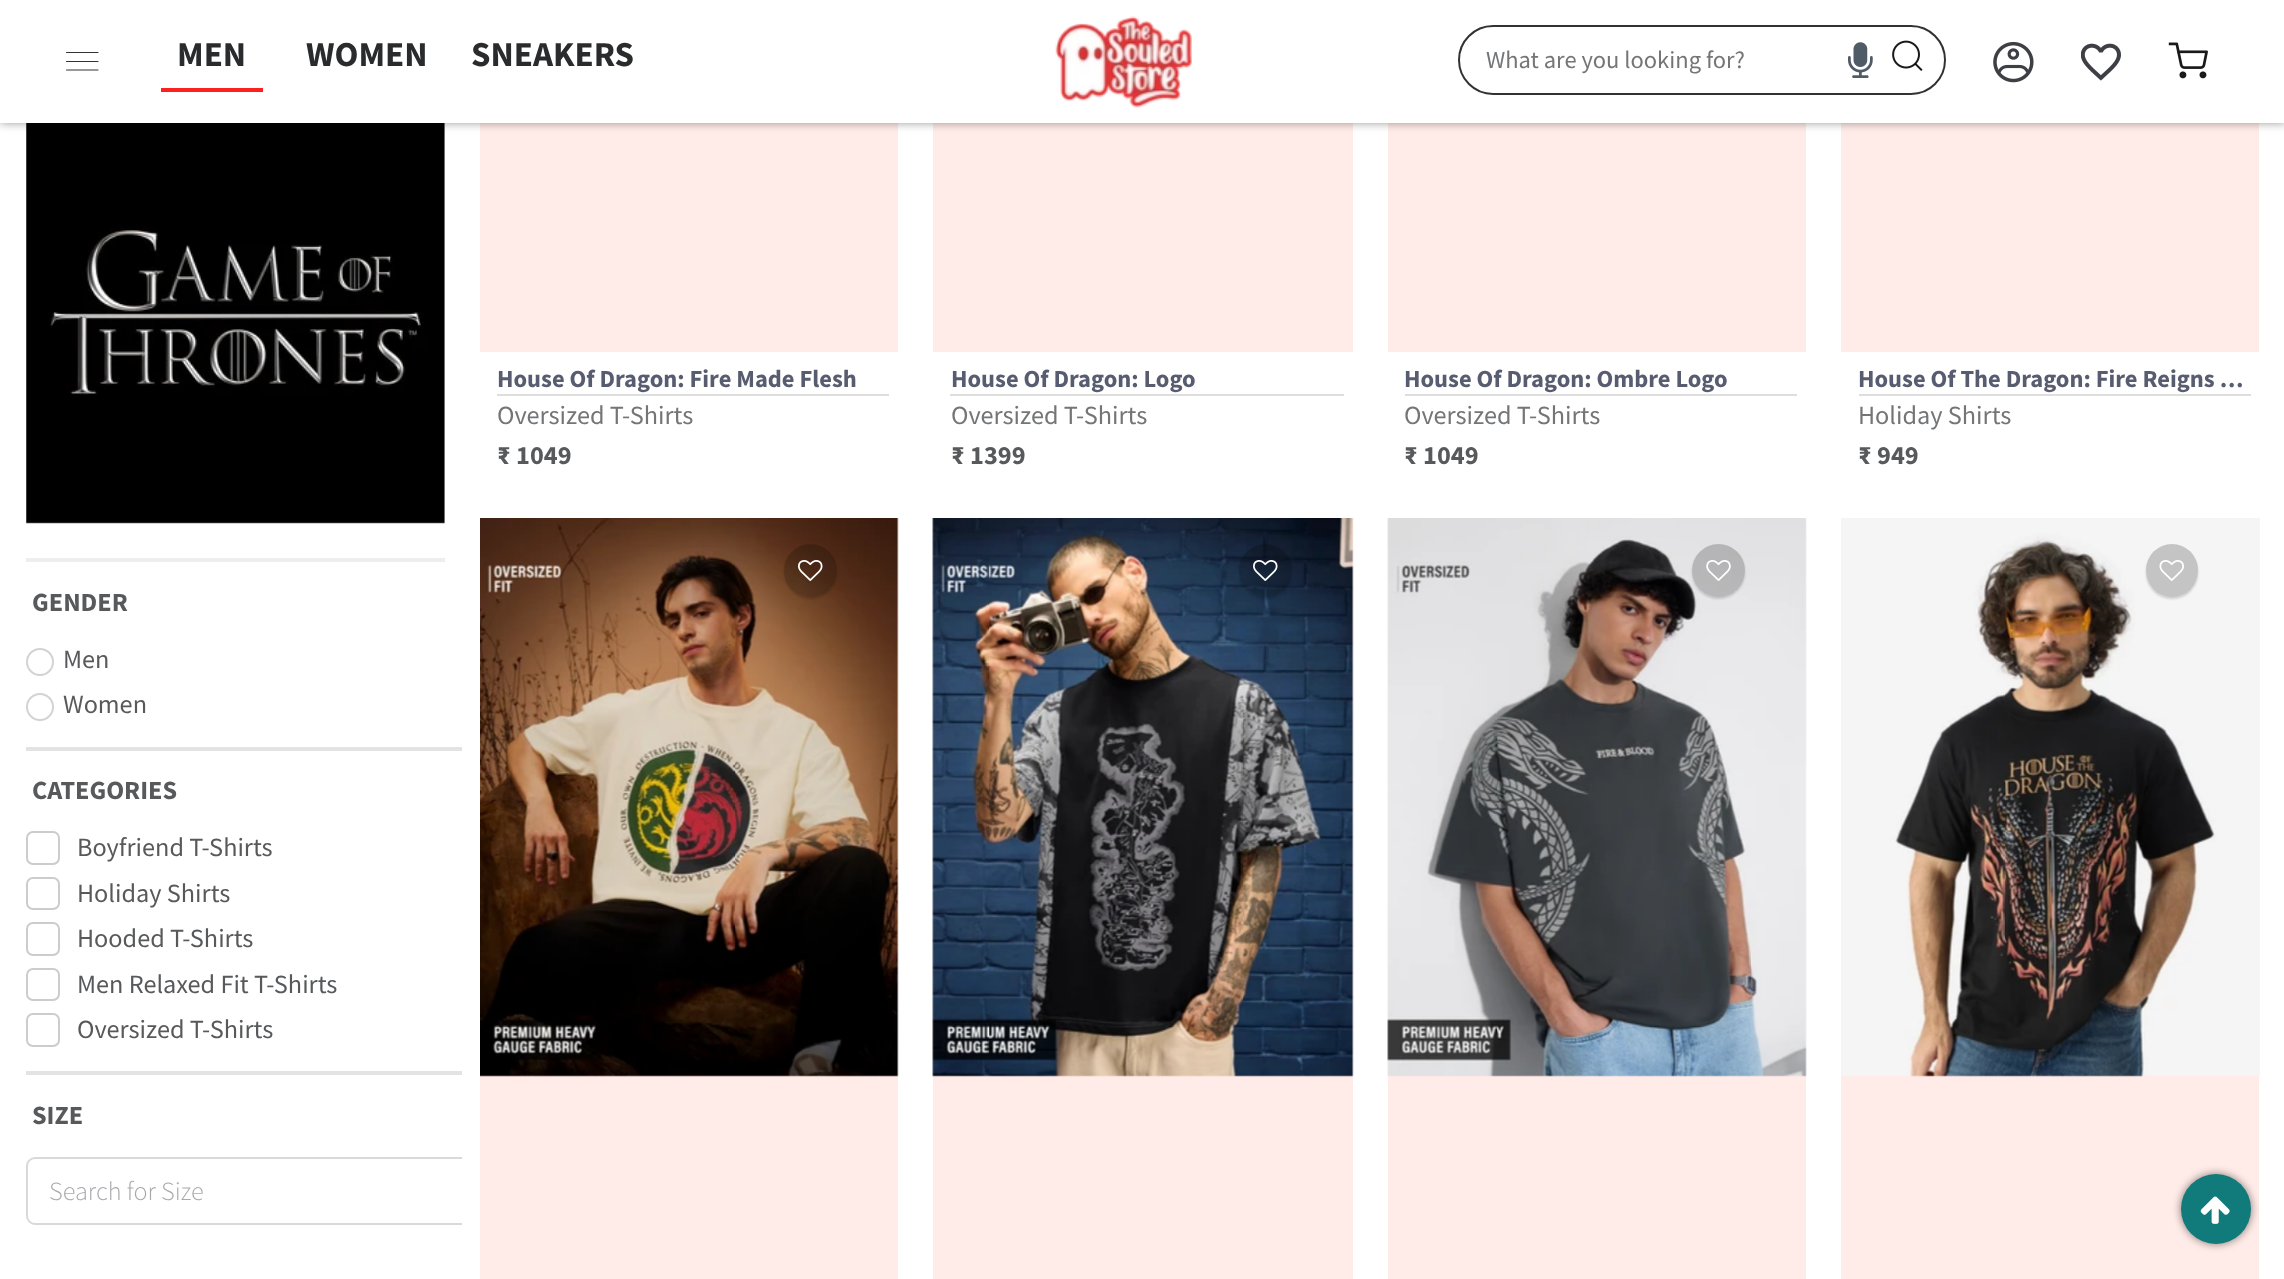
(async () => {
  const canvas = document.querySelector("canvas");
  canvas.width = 2284;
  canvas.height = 1279;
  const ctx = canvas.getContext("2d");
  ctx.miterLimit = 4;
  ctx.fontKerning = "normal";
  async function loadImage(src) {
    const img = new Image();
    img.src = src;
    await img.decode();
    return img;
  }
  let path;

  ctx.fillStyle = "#ffffff";
  ctx.fillRect(0, 0, 2284, 1279);
  for (const [x, y, w, h, color] of [
    [480, 123, 418, 229, "#ffebe7"],
    [933, 123, 420, 229, "#ffebe7"],
    [1388, 123, 418, 229, "#ffebe7"],
    [1841, 123, 418, 229, "#ffebe7"],
  ]) {
    ctx.fillStyle = color;
    ctx.fillRect(x, y, w, h);
  }
  ctx.drawImage(await loadImage("img/15.png"), 26, 123, 419, 401);
  ctx.fillStyle = "rgba(0, 0, 0, 0.4)";
  ctx.filter = "blur(5px)";
  ctx.beginPath();
  ctx.rect(0, 0, 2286, 123);
  ctx.fill();
  ctx.filter = "none";
  ctx.fillStyle = "#ffffff";
  ctx.fillRect(0, 0, 2284, 123);
  path = new Path2D("M66.5 52.5H98M66.5 61.5H98M66.5 70H98");
  ctx.strokeStyle = "#333333";
  ctx.lineWidth = 1.1;
  ctx.lineCap = "round";
  ctx.stroke(path);
  ctx.fillStyle = "#fc2020";
  ctx.fillRect(161, 88, 102, 4);
  ctx.drawImage(await loadImage("img/1.png"), 1055, 16, 137, 93);
  ctx.beginPath();
  ctx.roundRect(1459, 26, 486, 68, 34);
  ctx.strokeStyle = "#323232";
  ctx.lineWidth = 2;
  ctx.stroke();
  ctx.drawImage(await loadImage("img/2.png"), 1848, 42, 25, 36);
  ctx.drawImage(await loadImage("img/3.png"), 1892, 40, 31, 31);
  ctx.drawImage(await loadImage("img/4.png"), 1993, 42, 41, 41);
  ctx.drawImage(await loadImage("img/5.png"), 2081, 43, 40, 38);
  ctx.drawImage(await loadImage("img/6.png"), 2168, 42, 40, 37);
  for (const [x, y, w, h, color] of [
    [497, 394, 392, 2, "#dedede"],
    [950, 394, 394, 2, "#dedede"],
    [1405, 394, 392, 2, "#dedede"],
    [1859, 394, 392, 2, "#dedede"],
  ]) {
    ctx.fillStyle = color;
    ctx.fillRect(x, y, w, h);
  }
  ctx.save();
  ctx.beginPath();
  ctx.rect(26, 562, 436, 695);
  ctx.clip();
  ctx.beginPath();
  ctx.roundRect(27, 1158, 1442, 66, 8);
  ctx.strokeStyle = "#d9d9d9";
  ctx.stroke();
  ctx.restore();
  ctx.fillStyle = "#ffebe7";
  ctx.fillRect(480, 518, 418, 761);
  ctx.drawImage(await loadImage("img/7.png"), 480, 518, 419, 559);
  ctx.save();
  path = new Path2D("M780 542H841V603H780ZM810.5 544C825 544 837 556 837 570.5C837 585 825 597 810.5 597C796 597 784 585 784 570.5C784 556 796 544 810.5 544Z");
  ctx.clip(path, "evenodd");
  ctx.fillStyle = "rgba(0, 0, 0, 0.16)";
  ctx.filter = "blur(1px)";
  ctx.beginPath();
  ctx.roundRect(784, 546, 53, 53, 26.5);
  ctx.fill();
  ctx.filter = "none";
  ctx.restore();
  ctx.fillStyle = "rgba(0, 0, 0, 0.2)";
  ctx.beginPath();
  ctx.arc(810.5, 570.5, 26.5, 0, Math.PI * 2);
  ctx.fill();
  ctx.drawImage(await loadImage("img/8.png"), 798, 560, 25, 21);
  ctx.fillStyle = "#ffebe7";
  ctx.fillRect(933, 518, 420, 761);
  ctx.drawImage(await loadImage("img/9.png"), 932, 518, 422, 559);
  ctx.save();
  path = new Path2D("M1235 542H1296V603H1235ZM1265.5 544C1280 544 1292 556 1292 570.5C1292 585 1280 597 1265.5 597C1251 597 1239 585 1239 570.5C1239 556 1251 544 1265.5 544Z");
  ctx.clip(path, "evenodd");
  ctx.fillStyle = "rgba(0, 0, 0, 0.16)";
  ctx.filter = "blur(1px)";
  ctx.beginPath();
  ctx.roundRect(1239, 546, 53, 53, 26.5);
  ctx.fill();
  ctx.filter = "none";
  ctx.restore();
  ctx.fillStyle = "rgba(0, 0, 0, 0.2)";
  ctx.beginPath();
  ctx.arc(1265.5, 570.5, 26.5, 0, Math.PI * 2);
  ctx.fill();
  ctx.drawImage(await loadImage("img/10.png"), 1253, 560, 25, 21);
  ctx.fillStyle = "#ffebe7";
  ctx.fillRect(1388, 518, 418, 761);
  ctx.drawImage(await loadImage("img/11.png"), 1387, 518, 420, 559);
  ctx.save();
  path = new Path2D("M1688 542H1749V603H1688ZM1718.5 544C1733 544 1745 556 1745 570.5C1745 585 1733 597 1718.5 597C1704 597 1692 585 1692 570.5C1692 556 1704 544 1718.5 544Z");
  ctx.clip(path, "evenodd");
  ctx.fillStyle = "rgba(0, 0, 0, 0.16)";
  ctx.filter = "blur(1px)";
  ctx.beginPath();
  ctx.roundRect(1692, 546, 53, 53, 26.5);
  ctx.fill();
  ctx.filter = "none";
  ctx.restore();
  ctx.fillStyle = "rgba(0, 0, 0, 0.2)";
  ctx.beginPath();
  ctx.arc(1718.5, 570.5, 26.5, 0, Math.PI * 2);
  ctx.fill();
  ctx.drawImage(await loadImage("img/12.png"), 1706, 560, 25, 21);
  ctx.fillStyle = "#ffebe7";
  ctx.fillRect(1841, 518, 418, 761);
  ctx.drawImage(await loadImage("img/13.png"), 1841, 518, 419, 559);
  ctx.save();
  path = new Path2D("M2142 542H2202V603H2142ZM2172 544C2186.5 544 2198 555.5 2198 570V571C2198 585.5 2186.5 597 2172 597C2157.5 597 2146 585.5 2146 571V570C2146 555.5 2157.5 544 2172 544Z");
  ctx.clip(path, "evenodd");
  ctx.fillStyle = "rgba(0, 0, 0, 0.16)";
  ctx.filter = "blur(1px)";
  ctx.beginPath();
  ctx.roundRect(2146, 546, 52, 53, 26);
  ctx.fill();
  ctx.filter = "none";
  ctx.restore();
  ctx.fillStyle = "rgba(0, 0, 0, 0.2)";
  ctx.beginPath();
  ctx.roundRect(2146, 544, 52, 53, 26);
  ctx.fill();
  ctx.drawImage(await loadImage("img/14.png"), 2159, 560, 25, 21);
  ctx.fillStyle = "#eeeeee";
  ctx.fillRect(26, 558, 419, 4);
  ctx.beginPath();
  ctx.arc(40, 662, 13, 0, Math.PI * 2);
  ctx.strokeStyle = "#d3d3d3";
  ctx.stroke();
  ctx.beginPath();
  ctx.arc(40, 707, 13, 0, Math.PI * 2);
  ctx.stroke();
  ctx.fillStyle = "#e3e3e3";
  ctx.fillRect(26, 747, 436, 4);
  ctx.beginPath();
  ctx.roundRect(27, 832, 32, 32, 6);
  ctx.strokeStyle = "#cccccc";
  ctx.stroke();
  ctx.beginPath();
  ctx.roundRect(27, 878, 32, 31, 6);
  ctx.stroke();
  ctx.beginPath();
  ctx.roundRect(27, 923, 32, 32, 6);
  ctx.stroke();
  ctx.beginPath();
  ctx.roundRect(27, 969, 32, 31, 6);
  ctx.stroke();
  ctx.beginPath();
  ctx.roundRect(27, 1014, 32, 32, 6);
  ctx.stroke();
  ctx.fillRect(26, 1071, 436, 4);
  ctx.fillStyle = "rgba(0, 0, 0, 0.5)";
  ctx.filter = "blur(4.5px)";
  ctx.beginPath();
  ctx.roundRect(2181, 1174, 70, 70, 35);
  ctx.fill();
  ctx.filter = "none";
  ctx.fillStyle = "#117a7a";
  ctx.beginPath();
  ctx.arc(2216, 1209, 35, 0, Math.PI * 2);
  ctx.fill();
  ctx.drawImage(await loadImage("img/16.png"), 2200, 1196, 30, 28);
  ctx.font = "bold 35px Source Sans Pro";
  ctx.fillStyle = "#292b2c";
  for (const [text, x, y] of [
    ["MEN", 177, 66],
    ["WOMEN", 306, 66],
    ["SNEAKERS", 471, 66],
  ]) {
    ctx.fillText(text, x, y);
  }
  ctx.font = "24.5px Source Sans Pro";
  ctx.fillStyle = "#737577";
  ctx.fillText("What are you looking for?", 1486, 68);
  ctx.font = "bold 24.5px Source Sans Pro";
  ctx.fillStyle = "#585c70";
  ctx.fillText("House Of Dragon: Fire Made Flesh", 497, 387);
  ctx.font = "26.25px Source Sans Pro";
  ctx.fillStyle = "#737577";
  ctx.fillText("Oversized T-Shirts", 497, 424);
  ctx.font = "bold 26.25px Source Sans Pro";
  ctx.fillStyle = "#58595b";
  ctx.fillText("₹ 1049", 497, 464);
  ctx.font = "bold 24.5px Source Sans Pro";
  ctx.fillStyle = "#585c70";
  ctx.fillText("House Of Dragon: Logo", 951, 387);
  ctx.font = "26.25px Source Sans Pro";
  ctx.fillStyle = "#737577";
  ctx.fillText("Oversized T-Shirts", 951, 424);
  ctx.font = "bold 26.25px Source Sans Pro";
  ctx.fillStyle = "#58595b";
  ctx.fillText("₹ 1399", 951, 464);
  ctx.font = "bold 24.5px Source Sans Pro";
  ctx.fillStyle = "#585c70";
  ctx.fillText("House Of Dragon: Ombre Logo", 1404, 387);
  ctx.font = "26.25px Source Sans Pro";
  ctx.fillStyle = "#737577";
  ctx.fillText("Oversized T-Shirts", 1404, 424);
  ctx.font = "bold 26.25px Source Sans Pro";
  ctx.fillStyle = "#58595b";
  ctx.fillText("₹ 1049", 1404, 464);
  ctx.font = "bold 24.5px Source Sans Pro";
  ctx.fillStyle = "#585c70";
  ctx.fillText("House Of The Dragon: Fire Reigns …", 1858, 387);
  ctx.font = "26.25px Source Sans Pro";
  ctx.fillStyle = "#737577";
  ctx.fillText("Holiday Shirts", 1858, 424);
  ctx.font = "bold 26.25px Source Sans Pro";
  ctx.fillStyle = "#58595b";
  ctx.fillText("₹ 949", 1858, 464);
  ctx.fillText("GENDER", 32, 611);
  ctx.font = "26.25px Source Sans Pro";
  ctx.fillText("Men", 63, 668);
  ctx.fillText("Women", 63, 713);
  ctx.font = "bold 26.25px Source Sans Pro";
  ctx.fillText("CATEGORIES", 32, 799);
  ctx.font = "26.25px Source Sans Pro";
  for (const [text, x, y] of [
    ["Boyfriend T-Shirts", 77, 856],
    ["Holiday Shirts", 77, 902],
    ["Hooded T-Shirts", 77, 947],
    ["Men Relaxed Fit T-Shirts", 77, 993],
    ["Oversized T-Shirts", 77, 1038],
  ]) {
    ctx.fillText(text, x, y);
  }
  ctx.font = "bold 26.25px Source Sans Pro";
  ctx.fillText("SIZE", 32, 1124);
  ctx.font = "300 26.25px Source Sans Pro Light";
  ctx.fillStyle = "#a7a9ac";
  ctx.fillText("Search for Size", 49, 1200);
})();
